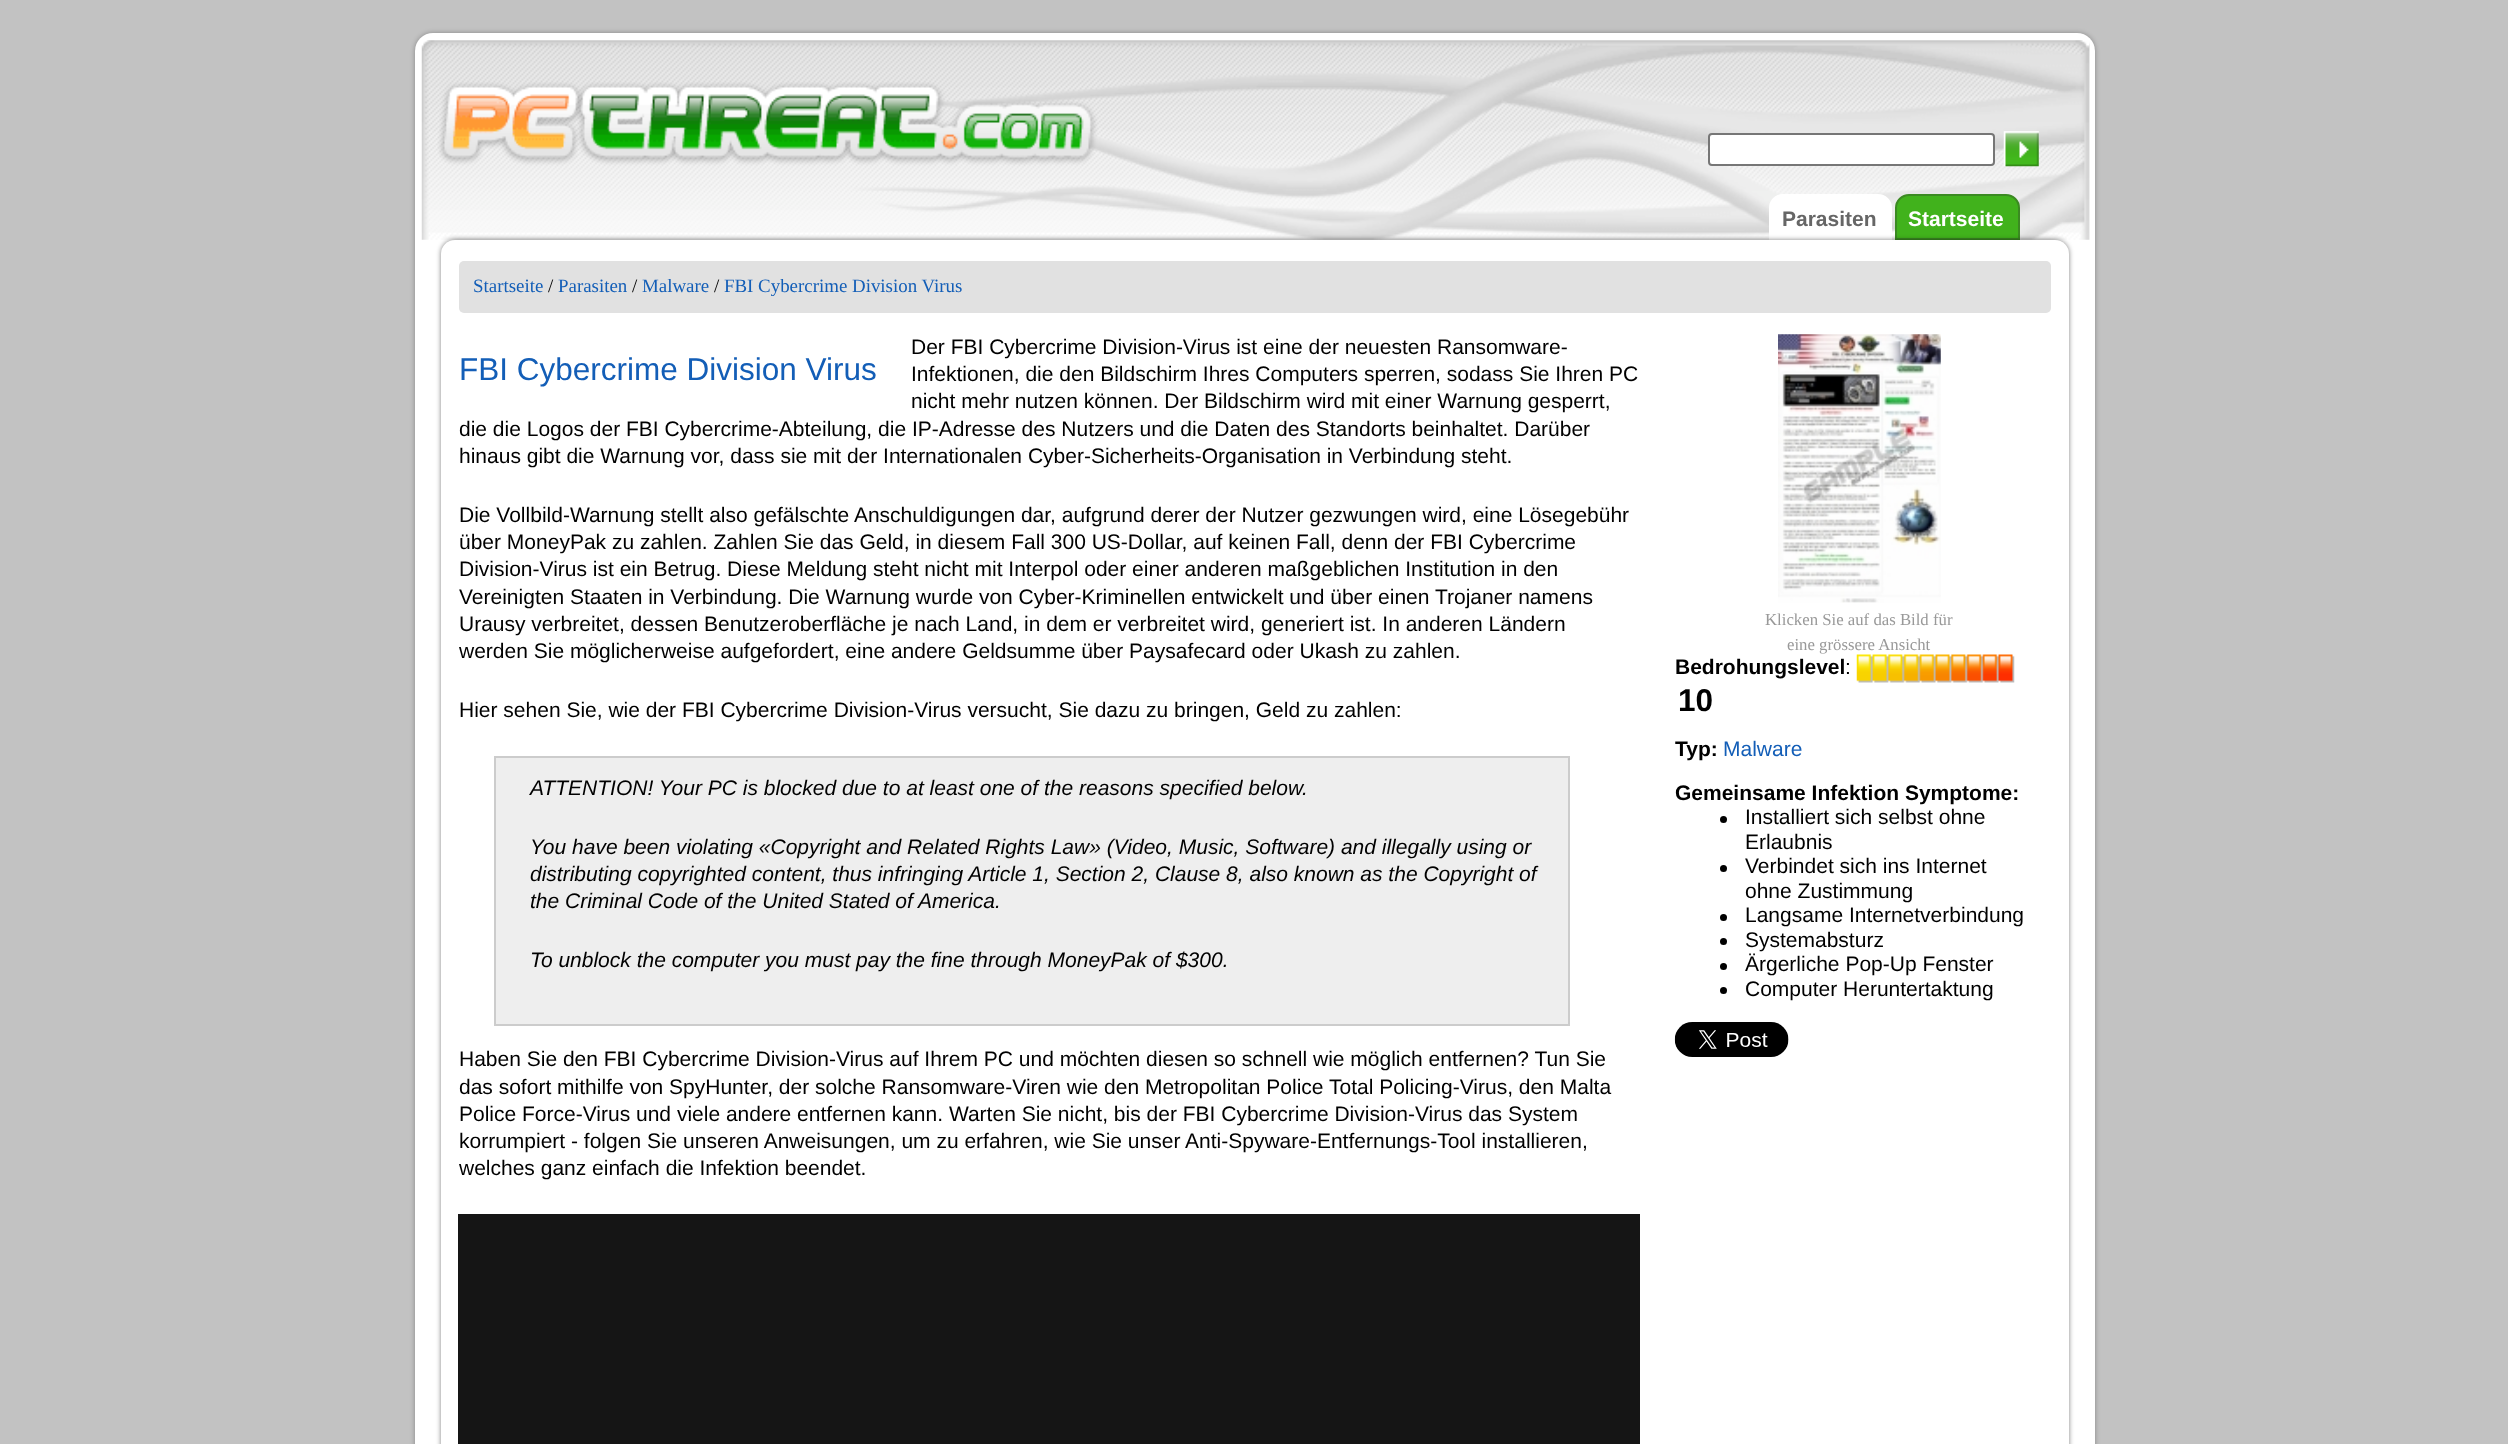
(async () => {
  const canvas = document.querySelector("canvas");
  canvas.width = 2508;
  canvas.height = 1444;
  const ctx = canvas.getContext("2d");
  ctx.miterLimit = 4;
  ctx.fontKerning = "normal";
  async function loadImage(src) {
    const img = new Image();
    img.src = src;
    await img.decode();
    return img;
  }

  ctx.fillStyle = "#c2c2c2";
  ctx.fillRect(0, 0, 2508, 1444);
  ctx.fillStyle = "rgba(0, 0, 0, 0.3)";
  ctx.filter = "blur(2.5px)";
  ctx.beginPath();
  ctx.roundRect(415, 33, 1680, 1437, 18);
  ctx.fill();
  ctx.filter = "none";
  ctx.fillStyle = "#ffffff";
  ctx.beginPath();
  ctx.roundRect(415, 33, 1680, 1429, 18);
  ctx.fill();
  ctx.drawImage(await loadImage("img/1.png"), 421, 40, 1669, 200);
  ctx.beginPath();
  ctx.roundRect(1709, 134, 285, 31, 3);
  ctx.fill();
  ctx.strokeStyle = "#767676";
  ctx.lineWidth = 2;
  ctx.stroke();
  ctx.fillStyle = "#efefef";
  ctx.fillRect(2004, 131, 35, 35);
  ctx.drawImage(await loadImage("img/2.png"), 2003, 131, 36, 36);
  ctx.fillStyle = "#ffffff";
  ctx.beginPath();
  ctx.roundRect(1770, 195, 121, 44, [13, 13, 0, 0]);
  ctx.fill();
  ctx.strokeStyle = "#ffffff";
  ctx.stroke();
  ctx.fillStyle = "#41b21c";
  ctx.beginPath();
  ctx.roundRect(1896, 195, 123, 44, [13, 13, 0, 0]);
  ctx.fill();
  ctx.strokeStyle = "#3b8a22";
  ctx.stroke();
  ctx.fillStyle = "rgba(0, 0, 0, 0.5)";
  ctx.filter = "blur(2.5px)";
  ctx.beginPath();
  ctx.roundRect(441, 240, 1628, 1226, 14);
  ctx.fill();
  ctx.filter = "none";
  ctx.fillStyle = "#ffffff";
  ctx.beginPath();
  ctx.roundRect(441, 240, 1628, 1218, 14);
  ctx.fill();
  ctx.fillStyle = "#e1e1e1";
  ctx.beginPath();
  ctx.roundRect(459, 261, 1592, 52, 5);
  ctx.fill();
  ctx.fillStyle = "#eeeeee";
  ctx.beginPath();
  ctx.rect(495, 757, 1074, 268);
  ctx.fill();
  ctx.strokeStyle = "#cccccc";
  ctx.stroke();
  ctx.fillStyle = "#151515";
  ctx.fillRect(458, 1214, 1182, 230);
  ctx.drawImage(await loadImage("img/3.png"), 1778, 334, 163, 269);
  ctx.drawImage(await loadImage("img/4.png"), 1856, 654, 159, 29);
  ctx.fillStyle = "#000000";
  ctx.beginPath();
  ctx.arc(1723.5, 819.5, 3.5, 0, Math.PI * 2);
  ctx.fill();
  ctx.beginPath();
  ctx.arc(1723.5, 868.5, 3.5, 0, Math.PI * 2);
  ctx.fill();
  ctx.beginPath();
  ctx.arc(1723.5, 917.5, 3.5, 0, Math.PI * 2);
  ctx.fill();
  ctx.beginPath();
  ctx.arc(1723.5, 941.5, 3.5, 0, Math.PI * 2);
  ctx.fill();
  ctx.beginPath();
  ctx.arc(1723.5, 966.5, 3.5, 0, Math.PI * 2);
  ctx.fill();
  ctx.beginPath();
  ctx.arc(1723.5, 990.5, 3.5, 0, Math.PI * 2);
  ctx.fill();
  ctx.drawImage(await loadImage("img/5.png"), 1674, 1022, 115, 35);
  ctx.font = "bold 21px Liberation Sans";
  ctx.fillStyle = "#666666";
  ctx.fillText("Parasiten", 1782, 226);
  ctx.fillStyle = "#ffffff";
  ctx.fillText("Startseite", 1908, 226);
  ctx.font = "18.9px Liberation Serif";
  ctx.fillStyle = "#135eb7";
  ctx.fillText("Startseite", 473, 292);
  ctx.fillStyle = "#000000";
  ctx.fillText("/", 548, 292);
  ctx.fillStyle = "#135eb7";
  ctx.fillText("Parasiten", 558, 292);
  ctx.fillStyle = "#000000";
  ctx.fillText("/", 632, 292);
  ctx.fillStyle = "#135eb7";
  ctx.fillText("Malware", 642, 292);
  ctx.fillStyle = "#000000";
  ctx.fillText("/", 714, 292);
  ctx.fillStyle = "#135eb7";
  ctx.fillText("FBI Cybercrime Division Virus", 724, 292);
  ctx.font = "21px Liberation Sans";
  ctx.fillStyle = "#000000";
  for (const [text, x, y] of [
    ["Der FBI Cybercrime Division-Virus ist eine der neuesten Ransomware-", 911, 354],
    ["Infektionen, die den Bildschirm Ihres Computers sperren, sodass Sie Ihren PC", 911, 381],
    ["nicht mehr nutzen können. Der Bildschirm wird mit einer Warnung gesperrt,", 911, 408],
    ["die die Logos der FBI Cybercrime-Abteilung, die IP-Adresse des Nutzers und die Daten des Standorts beinhaltet. Darüber", 459, 436],
    ["hinaus gibt die Warnung vor, dass sie mit der Internationalen Cyber-Sicherheits-Organisation in Verbindung steht.", 459, 463],
  ]) {
    ctx.fillText(text, x, y);
  }
  ctx.font = "31.5px Liberation Sans";
  ctx.fillStyle = "#135eb7";
  ctx.fillText("FBI Cybercrime Division Virus", 459, 380);
  ctx.font = "21px Liberation Sans";
  ctx.fillStyle = "#000000";
  for (const [text, x, y] of [
    ["Die Vollbild-Warnung stellt also gefälschte Anschuldigungen dar, aufgrund derer der Nutzer gezwungen wird, eine Lösegebühr", 459, 522],
    ["über MoneyPak zu zahlen. Zahlen Sie das Geld, in diesem Fall 300 US-Dollar, auf keinen Fall, denn der FBI Cybercrime", 459, 549],
    ["Division-Virus ist ein Betrug. Diese Meldung steht nicht mit Interpol oder einer anderen maßgeblichen Institution in den", 459, 576],
    ["Vereinigten Staaten in Verbindung. Die Warnung wurde von Cyber-Kriminellen entwickelt und über einen Trojaner namens", 459, 604],
    ["Urausy verbreitet, dessen Benutzeroberfläche je nach Land, in dem er verbreitet wird, generiert ist. In anderen Ländern", 459, 631],
    ["werden Sie möglicherweise aufgefordert, eine andere Geldsumme über Paysafecard oder Ukash zu zahlen.", 459, 658],
    ["Hier sehen Sie, wie der FBI Cybercrime Division-Virus versucht, Sie dazu zu bringen, Geld zu zahlen:", 459, 717],
  ]) {
    ctx.fillText(text, x, y);
  }
  ctx.font = "italic 21px Liberation Sans";
  for (const [text, x, y] of [
    ["ATTENTION! Your PC is blocked due to at least one of the reasons specified below.", 530, 795],
    ["You have been violating «Copyright and Related Rights Law» (Video, Music, Software) and illegally using or", 530, 854],
    ["distributing copyrighted content, thus infringing Article 1, Section 2, Clause 8, also known as the Copyright of", 530, 881],
    ["the Criminal Code of the United Stated of America.", 530, 908],
    ["To unblock the computer you must pay the fine through MoneyPak of $300.", 530, 967],
  ]) {
    ctx.fillText(text, x, y);
  }
  ctx.font = "21px Liberation Sans";
  for (const [text, x, y] of [
    ["Haben Sie den FBI Cybercrime Division-Virus auf Ihrem PC und möchten diesen so schnell wie möglich entfernen? Tun Sie", 459, 1066],
    ["das sofort mithilfe von SpyHunter, der solche Ransomware-Viren wie den Metropolitan Police Total Policing-Virus, den Malta", 459, 1094],
    ["Police Force-Virus und viele andere entfernen kann. Warten Sie nicht, bis der FBI Cybercrime Division-Virus das System", 459, 1121],
    ["korrumpiert - folgen Sie unseren Anweisungen, um zu erfahren, wie Sie unser Anti-Spyware-Entfernungs-Tool installieren,", 459, 1148],
    ["welches ganz einfach die Infektion beendet.", 459, 1175],
  ]) {
    ctx.fillText(text, x, y);
  }
  ctx.font = "16.75px Liberation Serif";
  ctx.fillStyle = "#999999";
  ctx.fillText("Klicken Sie auf das Bild für", 1765, 625);
  ctx.fillText("eine grössere Ansicht", 1787, 650);
  ctx.font = "bold 21px Liberation Sans";
  ctx.fillStyle = "#000000";
  ctx.fillText("Bedrohungslevel", 1675, 674);
  ctx.font = "21px Liberation Sans";
  ctx.fillText(":", 1845, 674);
  ctx.font = "bold 31.5px Liberation Sans";
  ctx.fillText("10", 1678, 711);
  ctx.font = "bold 21px Liberation Sans";
  ctx.fillText("Typ:", 1675, 756);
  ctx.font = "21px Liberation Sans";
  ctx.fillStyle = "#135eb7";
  ctx.fillText("Malware", 1723, 756);
  ctx.font = "bold 21px Liberation Sans";
  ctx.fillStyle = "#000000";
  ctx.fillText("Gemeinsame Infektion Symptome:", 1675, 800);
  ctx.font = "21px Liberation Sans";
  for (const [text, x, y] of [
    ["Installiert sich selbst ohne", 1745, 824],
    ["Erlaubnis", 1745, 849],
    ["Verbindet sich ins Internet", 1745, 873],
    ["ohne Zustimmung", 1745, 898],
    ["Langsame Internetverbindung", 1745, 922],
    ["Systemabsturz", 1745, 947],
    ["Ärgerliche Pop-Up Fenster", 1745, 971],
    ["Computer Heruntertaktung", 1745, 996],
  ]) {
    ctx.fillText(text, x, y);
  }
})();
